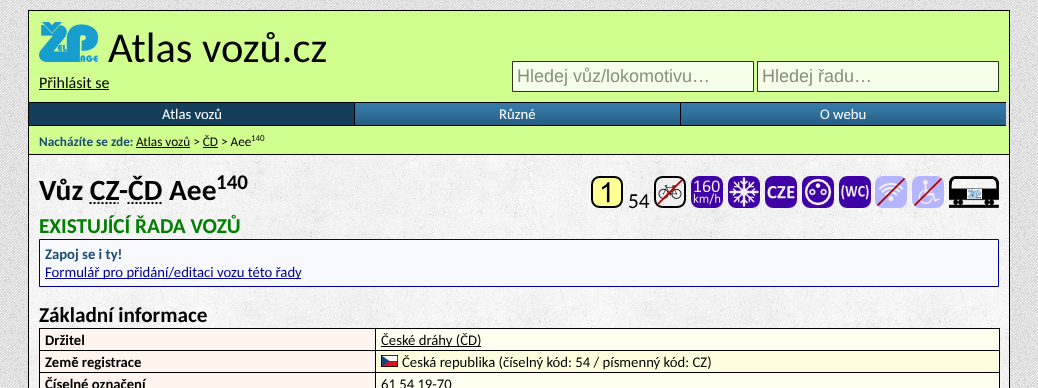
(async () => {
  const canvas = document.querySelector("canvas");
  canvas.width = 1038;
  canvas.height = 388;
  const ctx = canvas.getContext("2d");
  ctx.miterLimit = 4;
  ctx.fontKerning = "normal";
  async function loadImage(src) {
    const img = new Image();
    img.src = src;
    await img.decode();
    return img;
  }
  let path;

  ctx.fillStyle = "#ffffff";
  ctx.fillRect(0, 0, 1038, 388);
  ctx.drawImage(await loadImage("img/1.png"), 0, 0, 1038, 388);
  ctx.strokeStyle = "#000000";
  ctx.strokeRect(28.5, 10.5, 981, 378);
  ctx.fillStyle = "#d0ff90";
  ctx.fillRect(29, 11, 980, 91);
  ctx.drawImage(await loadImage("img/2.png"), 39, 22, 59, 40);
  ctx.fillStyle = "#000000";
  ctx.fillRect(39, 89, 70, 1);
  ctx.fillStyle = "#f6ffe9";
  ctx.beginPath();
  ctx.rect(512.5, 61.5, 241, 30);
  ctx.fill();
  ctx.strokeStyle = "#2a331d";
  ctx.stroke();
  ctx.beginPath();
  ctx.rect(757.5, 61.5, 241, 30);
  ctx.fill();
  ctx.stroke();
  for (const [x, y, w, h, color] of [
    [29, 102, 977, 1, "#000000"],
    [354, 102, 1, 24, "#000000"],
    [29, 125, 326, 1, "#000000"],
    [29, 103, 325, 22, "#133f5d"],
  ]) {
    ctx.fillStyle = color;
    ctx.fillRect(x, y, w, h);
  }
  ctx.drawImage(await loadImage("img/3.png"), 355, 103, 325, 22);
  ctx.fillStyle = "#000000";
  ctx.fillRect(680, 102, 1, 24);
  ctx.fillRect(355, 125, 651, 1);
  ctx.drawImage(await loadImage("img/3.png"), 681, 103, 325, 22);
  for (const [x, y, w, h, color] of [
    [29, 126, 980, 28, "#d0ff90"],
    [29, 154, 980, 1, "#000000"],
    [136, 147, 54, 1, "#000000"],
    [203, 147, 15, 1, "#000000"],
  ]) {
    ctx.fillStyle = color;
    ctx.fillRect(x, y, w, h);
  }
  ctx.drawImage(await loadImage("img/4.png"), 29, 155, 980, 233);
  ctx.drawImage(await loadImage("img/5.png"), 591, 176, 32, 32);
  ctx.drawImage(await loadImage("img/6.png"), 654, 176, 32, 32);
  ctx.drawImage(await loadImage("img/7.png"), 691, 176, 32, 32);
  ctx.drawImage(await loadImage("img/8.png"), 728, 176, 32, 32);
  ctx.drawImage(await loadImage("img/9.png"), 765, 176, 32, 32);
  ctx.drawImage(await loadImage("img/10.png"), 802, 176, 32, 32);
  ctx.drawImage(await loadImage("img/11.png"), 839, 176, 32, 32);
  ctx.drawImage(await loadImage("img/12.png"), 875, 176, 32, 32);
  ctx.drawImage(await loadImage("img/13.png"), 912, 176, 32, 32);
  ctx.drawImage(await loadImage("img/14.png"), 949, 176, 50, 32);
  path = new Path2D("M89.5 203H118.5");
  ctx.strokeStyle = "#000000";
  ctx.lineWidth = 2;
  ctx.setLineDash([2, 2]);
  ctx.stroke(path);
  path = new Path2D("M127.5 203H161.5");
  ctx.stroke(path);
  ctx.fillStyle = "#f8f8ff";
  ctx.beginPath();
  ctx.rect(39.5, 239.5, 959, 47);
  ctx.fill();
  ctx.strokeStyle = "#00008b";
  ctx.lineWidth = 1;
  ctx.setLineDash([]);
  ctx.stroke();
  for (const [x, y, w, h, color] of [
    [45, 278, 256, 1, "#00008b"],
    [40, 329, 335, 21, "#fff5ee"],
    [375, 328, 625, 1, "#000000"],
    [375, 350, 625, 1, "#000000"],
    [375, 372, 625, 1, "#000000"],
    [375, 372, 1, 16, "#000000"],
    [39, 372, 337, 1, "#000000"],
    [375, 350, 1, 23, "#000000"],
    [39, 350, 337, 1, "#000000"],
    [375, 328, 1, 23, "#000000"],
    [39, 328, 337, 1, "#000000"],
    [39, 372, 1, 16, "#000000"],
    [39, 350, 1, 23, "#000000"],
    [39, 328, 1, 23, "#000000"],
    [376, 329, 623, 21, "#fffff0"],
    [999, 372, 1, 16, "#000000"],
    [999, 350, 1, 23, "#000000"],
    [999, 328, 1, 23, "#000000"],
    [381, 346, 100, 1, "#000000"],
    [40, 351, 335, 21, "#fff5ee"],
    [376, 351, 623, 21, "#ffffe0"],
  ]) {
    ctx.fillStyle = color;
    ctx.fillRect(x, y, w, h);
  }
  ctx.drawImage(await loadImage("img/15.png"), 381, 355, 17, 12);
  ctx.fillStyle = "#fff5ee";
  ctx.fillRect(40, 373, 335, 15);
  ctx.fillStyle = "#fffff0";
  ctx.fillRect(376, 373, 623, 15);
  ctx.font = "42.5px Carlito";
  ctx.fillStyle = "#000000";
  ctx.fillText("Atlas vozů.cz", 108, 62);
  ctx.font = "16px Carlito";
  ctx.fillText("Přihlásit se", 39, 88);
  ctx.font = "18px Liberation Sans";
  ctx.fillStyle = "#87917a";
  ctx.fillText("Hledej vůz/lokomotivu…", 517, 82);
  ctx.fillText("Hledej řadu…", 762, 82);
  ctx.font = "14.7px Carlito";
  ctx.fillStyle = "#ffffff";
  for (const [text, x, y] of [
    ["Atlas vozů", 162, 119],
    ["Různé", 499, 119],
    ["O webu", 820, 119],
  ]) {
    ctx.fillText(text, x, y);
  }
  ctx.font = "bold 13.25px Carlito";
  ctx.fillStyle = "#1c4e71";
  ctx.fillText("Nacházíte se zde:", 39, 146);
  ctx.font = "13.25px Carlito";
  ctx.fillStyle = "#000000";
  ctx.fillText("Atlas vozů > ČD > Aee", 136, 146);
  ctx.font = "9px Carlito";
  ctx.fillText("140", 251, 141);
  ctx.font = "bold 29.5px Carlito";
  ctx.fillText("Vůz CZ", 39, 200);
  ctx.fillText("-ČD Aee", 119, 200);
  ctx.font = "bold 21px Carlito";
  ctx.fillText("140", 216, 189);
  ctx.font = "21.25px Carlito";
  ctx.fillText("54", 628, 208);
  ctx.font = "bold 21.25px Carlito";
  ctx.fillStyle = "#008000";
  ctx.fillText("EXISTUJÍCÍ ŘADA VOZŮ", 39, 233);
  ctx.font = "bold 14.7px Carlito";
  ctx.fillStyle = "#1c4e71";
  ctx.fillText("Zapoj se i ty!", 45, 259);
  ctx.font = "14.7px Carlito";
  ctx.fillStyle = "#00008b";
  ctx.fillText("Formulář pro přidání/editaci vozu této řady", 45, 277);
  ctx.font = "bold 21.25px Carlito";
  ctx.fillStyle = "#000000";
  ctx.fillText("Základní informace", 39, 322);
  ctx.font = "bold 14.7px Carlito";
  ctx.fillText("Držitel", 45, 345);
  ctx.font = "14.7px Carlito";
  ctx.fillText("České dráhy (ČD)", 381, 345);
  ctx.font = "bold 14.7px Carlito";
  ctx.fillText("Země registrace", 45, 367);
  ctx.font = "14.7px Carlito";
  ctx.fillText("Česká republika (číselný kód: 54 / písmenný kód: CZ)", 402, 367);
  ctx.font = "bold 14.7px Carlito";
  ctx.fillText("Číselné označení", 45, 389);
  ctx.font = "14.7px Carlito";
  ctx.fillText("61 54 19-70", 381, 389);
})();
